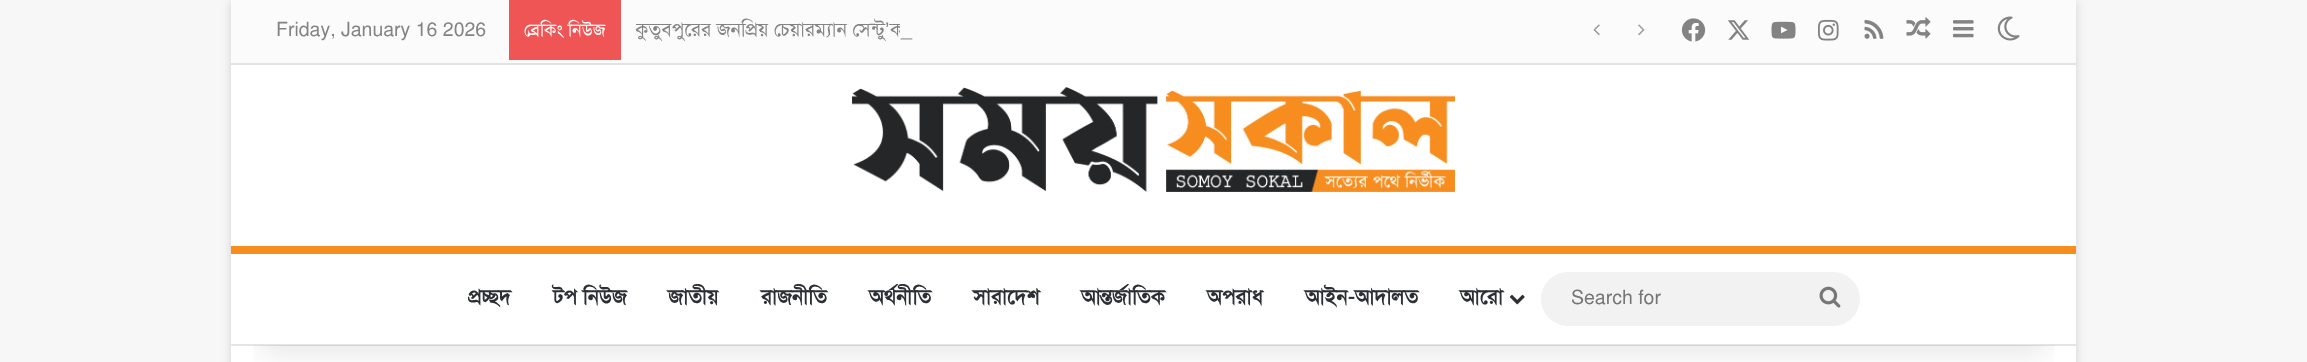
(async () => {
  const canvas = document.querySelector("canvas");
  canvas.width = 2307;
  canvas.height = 362;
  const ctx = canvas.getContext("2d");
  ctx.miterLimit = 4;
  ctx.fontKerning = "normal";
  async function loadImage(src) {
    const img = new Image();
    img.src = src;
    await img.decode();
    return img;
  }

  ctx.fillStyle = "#f7f7f7";
  ctx.fillRect(0, 0, 2307, 362);
  ctx.fillStyle = "rgba(171, 171, 171, 0.5)";
  ctx.filter = "blur(5px)";
  ctx.beginPath();
  ctx.rect(231, 2, 1845, 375);
  ctx.fill();
  ctx.filter = "none";
  ctx.fillStyle = "#ffffff";
  ctx.fillRect(231, 65, 1845, 297);
  ctx.save();
  ctx.beginPath();
  ctx.rect(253, 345, 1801, 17);
  ctx.clip();
  ctx.fillStyle = "rgba(0, 0, 0, 0.1)";
  ctx.filter = "blur(15px)";
  ctx.beginPath();
  ctx.rect(261, 68, 1785, 285);
  ctx.fill();
  ctx.filter = "none";
  ctx.restore();
  for (const [x, y, w, h, color] of [
    [231, 0, 1845, 63, "#fbfbfb"],
    [231, 63, 1845, 2, "#e2e2e2"],
    [509, 0, 112, 60, "#f05555"],
  ]) {
    ctx.fillStyle = color;
    ctx.fillRect(x, y, w, h);
  }
  ctx.drawImage(await loadImage("img/1.png"), 1593, 24, 7, 12);
  ctx.drawImage(await loadImage("img/2.png"), 1638, 24, 7, 12);
  ctx.drawImage(await loadImage("img/3.png"), 1681, 18, 25, 24);
  ctx.drawImage(await loadImage("img/4.png"), 1728, 20, 22, 20);
  ctx.drawImage(await loadImage("img/5.png"), 1771, 21, 25, 18);
  ctx.drawImage(await loadImage("img/6.png"), 1818, 19, 21, 22);
  ctx.drawImage(await loadImage("img/7.png"), 1864, 19, 20, 20);
  ctx.drawImage(await loadImage("img/8.png"), 1906, 17, 25, 22);
  ctx.drawImage(await loadImage("img/9.png"), 1953, 20, 21, 18);
  ctx.drawImage(await loadImage("img/10.png"), 1997, 16, 23, 25);
  ctx.drawImage(await loadImage("img/11.png"), 852, 87, 603, 105);
  ctx.fillStyle = "#f68d1e";
  ctx.fillRect(231, 246, 1845, 8);
  ctx.fillStyle = "rgba(0, 0, 0, 0.1)";
  ctx.fillRect(231, 344, 1845, 2);
  ctx.drawImage(await loadImage("img/12.png"), 1509, 294, 16, 11);
  ctx.fillStyle = "#f2f2f2";
  ctx.beginPath();
  ctx.roundRect(1541, 272, 319, 54, 27);
  ctx.fill();
  ctx.drawImage(await loadImage("img/13.png"), 1819, 286, 22, 22);
  ctx.font = "19.5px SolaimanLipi";
  ctx.fillStyle = "#838383";
  ctx.fillText("Friday, January 16 2026", 276, 36);
  ctx.font = "18px SolaimanLipi";
  ctx.fillStyle = "#ffffff";
  ctx.fillText("ব্রেকিং নিউজ", 524, 36);
  ctx.save();
  ctx.beginPath();
  ctx.rect(636, 0, 662, 60);
  ctx.clip();
  ctx.font = "19.5px SolaimanLipi";
  ctx.fillStyle = "#838383";
  ctx.fillText("কুতুবপুরের জনপ্রিয় চেয়ারম্যান সেন্টু", 635, 36);
  ctx.restore();
  ctx.font = "19.5px Liberation Sans";
  ctx.fillStyle = "#838383";
  ctx.fillText("’", 885, 36);
  ctx.font = "19.5px SolaimanLipi";
  ctx.fillText("ক", 890, 36);
  ctx.fillStyle = "#fbfbfb";
  ctx.fillRect(900, 23, 4, 10);
  ctx.fillStyle = "#838383";
  ctx.fillText("_", 901, 36);
  ctx.font = "bold 21px SolaimanLipi";
  ctx.fillStyle = "#2c2f34";
  for (const [text, x, y] of [
    ["প্রচ্ছদ", 468, 304],
    ["টপ নিউজ", 553, 304],
    ["জাতীয়", 668, 304],
    ["রাজনীতি", 761, 304],
    ["অর্থনীতি", 869, 304],
    ["সারাদেশ", 973, 304],
    ["আন্তর্জাতিক", 1081, 304],
    ["অপরাধ", 1207, 304],
    ["আইন-আদালত", 1305, 304],
    ["আরো", 1460, 304],
  ]) {
    ctx.fillText(text, x, y);
  }
  ctx.font = "19.5px SolaimanLipi";
  ctx.fillStyle = "#757575";
  ctx.fillText("Search for", 1571, 304);
})();
